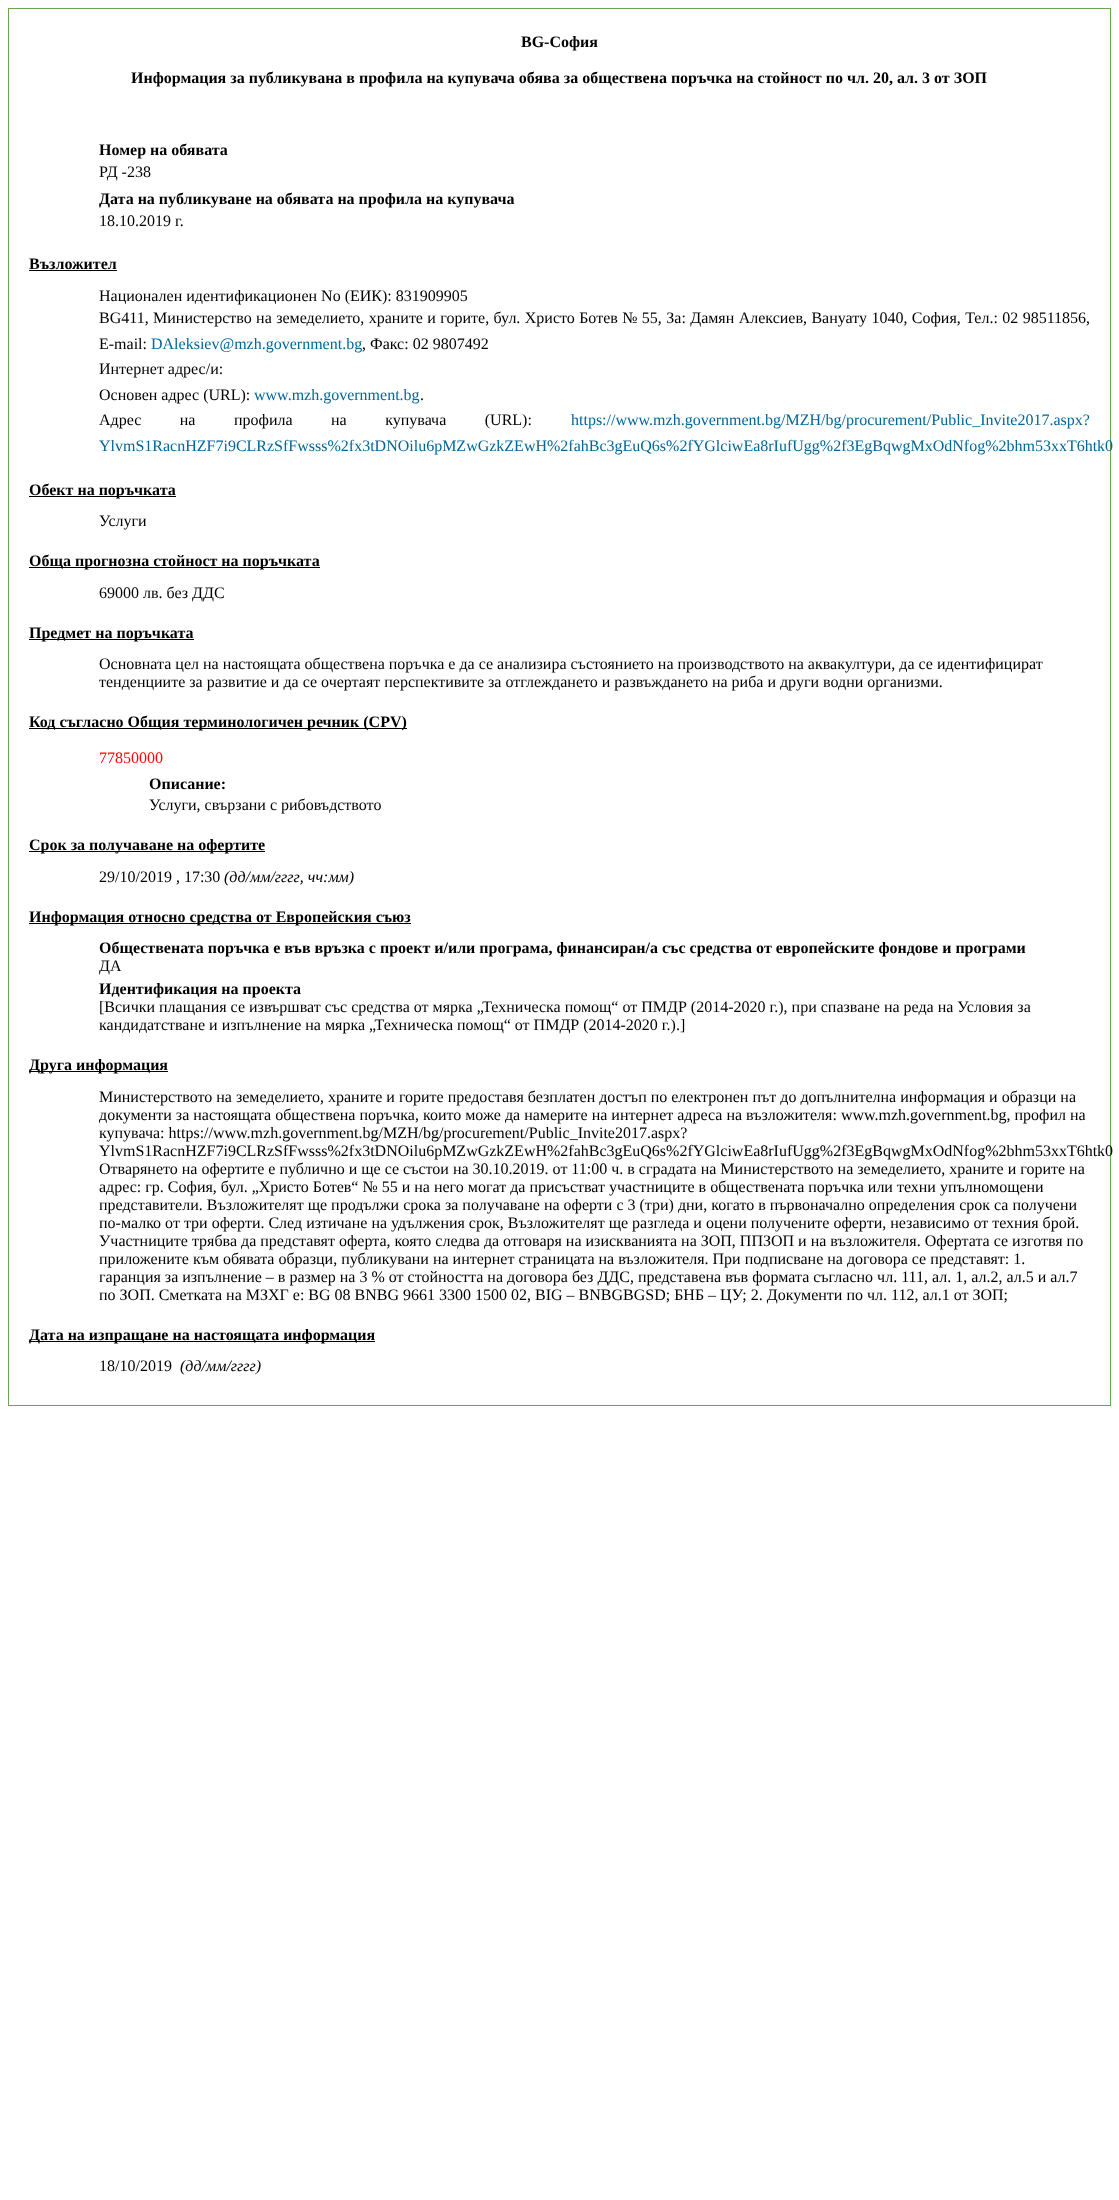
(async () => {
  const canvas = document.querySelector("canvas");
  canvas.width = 1119;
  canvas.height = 2200;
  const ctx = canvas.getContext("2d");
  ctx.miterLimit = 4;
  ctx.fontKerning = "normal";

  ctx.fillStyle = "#ffffff";
  ctx.fillRect(0, 0, 1119, 2200);
  ctx.strokeStyle = "#67a64f";
  ctx.strokeRect(8.5, 8.5, 1102, 1397);
  for (const [x, y, w, h, color] of [
    [29, 270, 88, 1, "#000000"],
    [29, 496, 147, 1, "#000000"],
    [29, 567, 291, 1, "#000000"],
    [29, 639, 165, 1, "#000000"],
    [29, 728, 378, 1, "#000000"],
    [29, 851, 236, 1, "#000000"],
    [29, 923, 382, 1, "#000000"],
    [29, 1071, 139, 1, "#000000"],
    [29, 1341, 346, 1, "#000000"],
  ]) {
    ctx.fillStyle = color;
    ctx.fillRect(x, y, w, h);
  }
  ctx.font = "bold 16px Liberation Serif";
  for (const [text, x, y] of [
    ["BG-София", 521, 47],
    ["Информация за публикувана в профила на купувача обява за обществена поръчка на стойност по чл. 20, ал. 3 от ЗОП", 131, 83],
    ["Номер на обявата", 99, 155],
  ]) {
    ctx.fillText(text, x, y);
  }
  ctx.font = "16px Liberation Serif";
  ctx.fillText("РД -238", 99, 177);
  ctx.font = "bold 16px Liberation Serif";
  ctx.fillText("Дата на публикуване на обявата на профила на купувача", 99, 204);
  ctx.font = "16px Liberation Serif";
  ctx.fillText("18.10.2019 г.", 99, 226);
  ctx.font = "bold 16px Liberation Serif";
  ctx.fillText("Възложител", 29, 269);
  ctx.font = "16px Liberation Serif";
  ctx.fillText("Национален идентификационен No (ЕИК): 831909905", 99, 301);
  ctx.wordSpacing = "0.4px";
  ctx.fillText("BG411, Министерство на земеделието, храните и горите, бул. Христо Ботев № 55, За: Дамян Алексиев, Вануату 1040, София, Тел.: 02 98511856,", 99, 323);
  ctx.wordSpacing = "0px";
  ctx.fillText("E-mail:", 99, 349);
  ctx.fillStyle = "#006699";
  ctx.fillText("DAleksiev@mzh.government.bg", 151, 349);
  ctx.fillStyle = "#000000";
  for (const [text, x, y] of [
    [", Факс: 02 9807492", 362, 349],
    ["Интернет адрес/и:", 99, 374],
    ["Основен адрес (URL):", 99, 400],
  ]) {
    ctx.fillText(text, x, y);
  }
  ctx.fillStyle = "#006699";
  ctx.fillText("www.mzh.government.bg", 254, 400);
  ctx.fillStyle = "#000000";
  ctx.fillText(".", 420, 400);
  ctx.wordSpacing = "34.5px";
  ctx.fillText("Адрес на профила на купувача (URL):", 99, 425);
  ctx.wordSpacing = "0px";
  ctx.fillStyle = "#006699";
  ctx.fillText("https://www.mzh.government.bg/MZH/bg/procurement/Public_Invite2017.aspx?", 571, 425);
  ctx.fillText("YlvmS1RacnHZF7i9CLRzSfFwsss%2fx3tDNOilu6pMZwGzkZEwH%2fahBc3gEuQ6s%2fYGlciwEa8rIufUgg%2f3EgBqwgMxOdNfog%2bhm53xxT6htk0", 99, 451);
  ctx.font = "bold 16px Liberation Serif";
  ctx.fillStyle = "#000000";
  ctx.fillText("Обект на поръчката", 29, 495);
  ctx.font = "16px Liberation Serif";
  ctx.fillText("Услуги", 99, 526);
  ctx.font = "bold 16px Liberation Serif";
  ctx.fillText("Обща прогнозна стойност на поръчката", 29, 566);
  ctx.font = "16px Liberation Serif";
  ctx.fillText("69000 лв. без ДДС", 99, 598);
  ctx.font = "bold 16px Liberation Serif";
  ctx.fillText("Предмет на поръчката", 29, 638);
  ctx.font = "16px Liberation Serif";
  ctx.fillText("Основната цел на настоящата обществена поръчка е да се анализира състоянието на производството на аквакултури, да се идентифицират", 99, 669);
  ctx.fillText("тенденциите за развитие и да се очертаят перспективите за отглеждането и развъждането на риба и други водни организми.", 99, 687);
  ctx.font = "bold 16px Liberation Serif";
  ctx.fillText("Код съгласно Общия терминологичен речник (CPV)", 29, 727);
  ctx.font = "16px Liberation Serif";
  ctx.fillStyle = "#ff0000";
  ctx.fillText("77850000", 99, 763);
  ctx.font = "bold 16px Liberation Serif";
  ctx.fillStyle = "#000000";
  ctx.fillText("Описание:", 149, 789);
  ctx.font = "16px Liberation Serif";
  ctx.fillText("Услуги, свързани с рибовъдството", 149, 810);
  ctx.font = "bold 16px Liberation Serif";
  ctx.fillText("Срок за получаване на офертите", 29, 850);
  ctx.font = "16px Liberation Serif";
  ctx.fillText("29/10/2019 , 17:30", 99, 882);
  ctx.font = "italic 16px Liberation Serif";
  ctx.fillText("(дд/мм/гггг, чч:мм)", 224, 882);
  ctx.font = "bold 16px Liberation Serif";
  ctx.fillText("Информация относно средства от Европейския съюз", 29, 922);
  ctx.fillText("Обществената поръчка е във връзка с проект и/или програма, финансиран/а със средства от европейските фондове и програми", 99, 953);
  ctx.font = "16px Liberation Serif";
  ctx.fillText("ДА", 99, 971);
  ctx.font = "bold 16px Liberation Serif";
  ctx.fillText("Идентификация на проекта", 99, 994);
  ctx.font = "16px Liberation Serif";
  ctx.fillText("[Всички плащания се извършват със средства от мярка „Техническа помощ“ от ПМДР (2014-2020 г.), при спазване на реда на Условия за", 99, 1012);
  ctx.fillText("кандидатстване и изпълнение на мярка „Техническа помощ“ от ПМДР (2014-2020 г.).]", 99, 1030);
  ctx.font = "bold 16px Liberation Serif";
  ctx.fillText("Друга информация", 29, 1070);
  ctx.font = "16px Liberation Serif";
  for (const [text, x, y] of [
    ["Министерството на земеделието, храните и горите предоставя безплатен достъп по електронен път до допълнителна информация и образци на", 99, 1102],
    ["документи за настоящата обществена поръчка, които може да намерите на интернет адреса на възложителя: www.mzh.government.bg, профил на", 99, 1120],
    ["купувача: https://www.mzh.government.bg/MZH/bg/procurement/Public_Invite2017.aspx?", 99, 1138],
    ["YlvmS1RacnHZF7i9CLRzSfFwsss%2fx3tDNOilu6pMZwGzkZEwH%2fahBc3gEuQ6s%2fYGlciwEa8rIufUgg%2f3EgBqwgMxOdNfog%2bhm53xxT6htk0", 99, 1156],
    ["Отварянето на офертите е публично и ще се състои на 30.10.2019. от 11:00 ч. в сградата на Министерството на земеделието, храните и горите на", 99, 1174],
    ["адрес: гр. София, бул. „Христо Ботев“ № 55 и на него могат да присъстват участниците в обществената поръчка или техни упълномощени", 99, 1192],
    ["представители. Възложителят ще продължи срока за получаване на оферти с 3 (три) дни, когато в първоначално определения срок са получени", 99, 1210],
    ["по-малко от три оферти. След изтичане на удължения срок, Възложителят ще разгледа и оцени получените оферти, независимо от техния брой.", 99, 1228],
    ["Участниците трябва да представят оферта, която следва да отговаря на изискванията на ЗОП, ППЗОП и на възложителя. Офертата се изготвя по", 99, 1246],
    ["приложените към обявата образци, публикувани на интернет страницата на възложителя. При подписване на договора се представят: 1.", 99, 1264],
    ["гаранция за изпълнение – в размер на 3 % от стойността на договора без ДДС, представена във формата съгласно чл. 111, ал. 1, ал.2, ал.5 и ал.7", 99, 1282],
    ["по ЗОП. Сметката на МЗХГ е: BG 08 BNBG 9661 3300 1500 02, BIG – BNBGBGSD; БНБ – ЦУ; 2. Документи по чл. 112, ал.1 от ЗОП;", 99, 1300],
  ]) {
    ctx.fillText(text, x, y);
  }
  ctx.font = "bold 16px Liberation Serif";
  ctx.fillText("Дата на изпращане на настоящата информация", 29, 1340);
  ctx.font = "16px Liberation Serif";
  ctx.fillText("18/10/2019", 99, 1371);
  ctx.font = "italic 16px Liberation Serif";
  ctx.fillText("(дд/мм/гггг)", 180, 1371);
})();
